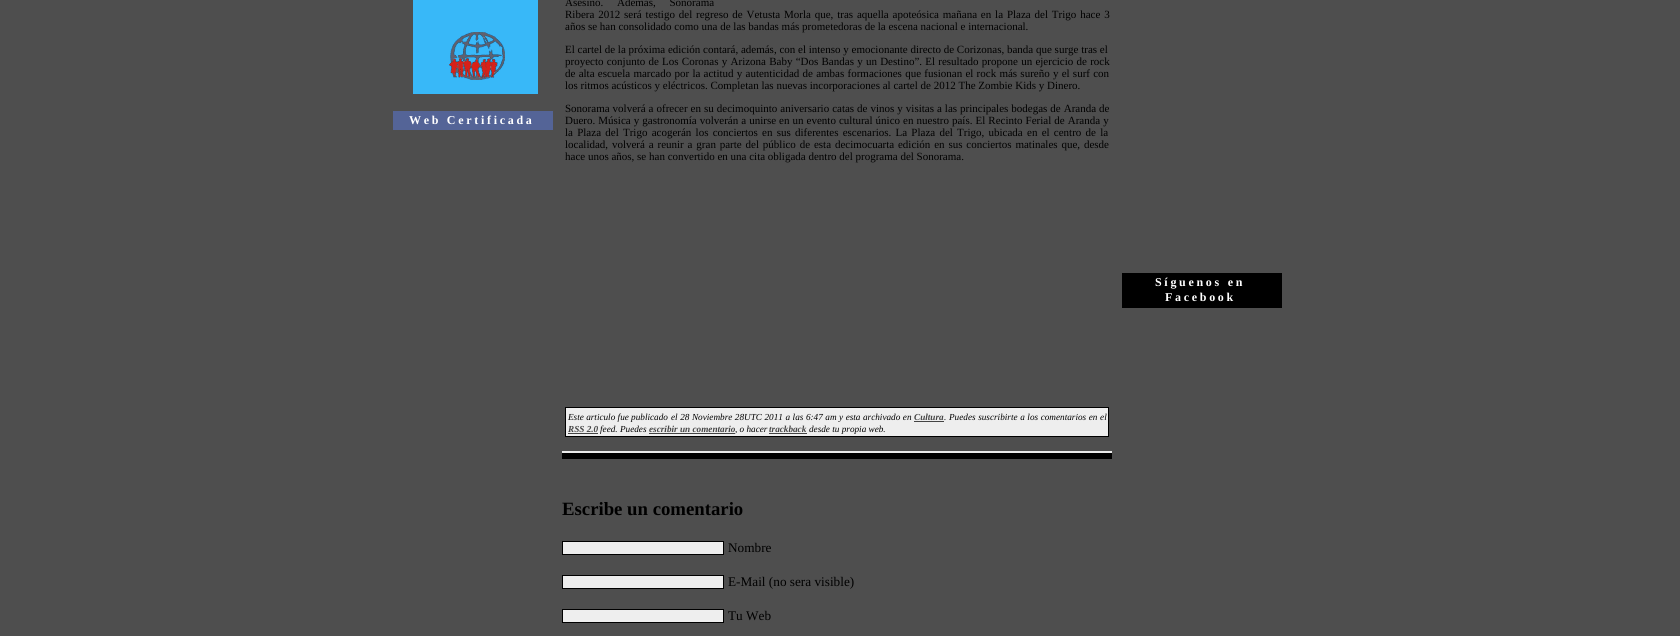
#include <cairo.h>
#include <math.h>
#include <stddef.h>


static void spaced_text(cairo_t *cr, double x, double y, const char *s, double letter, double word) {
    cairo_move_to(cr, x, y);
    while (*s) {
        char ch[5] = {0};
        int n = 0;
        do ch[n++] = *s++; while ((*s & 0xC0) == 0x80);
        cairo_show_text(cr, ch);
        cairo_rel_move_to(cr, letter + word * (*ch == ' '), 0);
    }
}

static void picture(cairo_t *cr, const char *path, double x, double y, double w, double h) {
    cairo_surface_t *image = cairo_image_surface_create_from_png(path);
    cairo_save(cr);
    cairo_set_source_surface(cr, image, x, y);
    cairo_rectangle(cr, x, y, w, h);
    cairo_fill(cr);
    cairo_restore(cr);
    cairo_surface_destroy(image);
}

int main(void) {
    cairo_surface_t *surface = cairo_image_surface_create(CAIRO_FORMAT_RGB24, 1680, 636);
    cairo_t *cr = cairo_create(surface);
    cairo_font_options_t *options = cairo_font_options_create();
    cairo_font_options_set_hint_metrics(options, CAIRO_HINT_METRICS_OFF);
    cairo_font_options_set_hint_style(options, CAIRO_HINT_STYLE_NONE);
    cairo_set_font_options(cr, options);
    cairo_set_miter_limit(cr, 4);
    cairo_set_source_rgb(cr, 0.306, 0.306, 0.306);
    cairo_paint(cr);
    picture(cr, "img1.png", 413, 0, 125, 94);
    cairo_set_source_rgb(cr, 0.329, 0.392, 0.592);
    cairo_rectangle(cr, 393, 111, 160, 19);
    cairo_fill(cr);
    cairo_select_font_face(cr, "Liberation Serif", CAIRO_FONT_SLANT_NORMAL, CAIRO_FONT_WEIGHT_BOLD);
    cairo_set_font_size(cr, 12);
    cairo_set_source_rgb(cr, 1, 1, 1);
    spaced_text(cr, 409, 124, "Web Certificada", 2.7, 0);
    cairo_select_font_face(cr, "Liberation Serif", CAIRO_FONT_SLANT_NORMAL, CAIRO_FONT_WEIGHT_NORMAL);
    cairo_set_font_size(cr, 11);
    cairo_set_source_rgb(cr, 0, 0, 0);
    spaced_text(cr, 565, 6, "Asesino. Además, Sonorama", 0, 11);
    spaced_text(cr, 565, 18, "Ribera 2012 será testigo del regreso de Vetusta Morla que, tras aquella apoteósica mañana en la Plaza del Trigo hace 3", 0, 1.1);
    cairo_move_to(cr, 565, 30);
    cairo_show_text(cr, "años se han consolidado como una de las bandas más prometedoras de la escena nacional e internacional.");
    cairo_move_to(cr, 565, 53);
    cairo_show_text(cr, "El cartel de la próxima edición contará, además, con el intenso y emocionante directo de Corizonas, banda que surge tras el");
    spaced_text(cr, 565, 65, "proyecto conjunto de Los Coronas y Arizona Baby “Dos Bandas y un Destino”. El resultado propone un ejercicio de rock", 0, 0.5);
    spaced_text(cr, 565, 77, "de alta escuela marcado por la actitud y autenticidad de ambas formaciones que fusionan el rock más sureño y el surf con", 0, 0.5);
    cairo_move_to(cr, 565, 89);
    cairo_show_text(cr, "los ritmos acústicos y eléctricos. Completan las nuevas incorporaciones al cartel de 2012 The Zombie Kids y Dinero.");
    spaced_text(cr, 565, 112, "Sonorama volverá a ofrecer en su decimoquinto aniversario catas de vinos y visitas a las principales bodegas de Aranda de", 0, 0.25);
    spaced_text(cr, 565, 124, "Duero. Música y gastronomía volverán a unirse en un evento cultural único en nuestro país. El Recinto Ferial de Aranda y", 0, 0.3);
    spaced_text(cr, 565, 136, "la Plaza del Trigo acogerán los conciertos en sus diferentes escenarios. La Plaza del Trigo, ubicada en el centro de la", 0, 1.5);
    spaced_text(cr, 565, 148, "localidad, volverá a reunir a gran parte del público de esta decimocuarta edición en sus conciertos matinales que, desde", 0, 1.1);
    cairo_move_to(cr, 565, 160);
    cairo_show_text(cr, "hace unos años, se han convertido en una cita obligada dentro del programa del Sonorama.");
    cairo_set_source_rgb(cr, 0.933, 0.933, 0.933);
    cairo_rectangle(cr, 565.5, 407.5, 543, 29);
    cairo_fill_preserve(cr);
    cairo_set_source_rgb(cr, 0, 0, 0);
    cairo_set_line_width(cr, 1);
    cairo_stroke(cr);
    cairo_select_font_face(cr, "Liberation Serif", CAIRO_FONT_SLANT_ITALIC, CAIRO_FONT_WEIGHT_NORMAL);
    cairo_set_font_size(cr, 9.2);
    cairo_move_to(cr, 568, 420);
    cairo_show_text(cr, "Este articulo fue publicado");
    spaced_text(cr, 671, 420, "el 28 Noviembre 28UTC 2011 a las 6:47 am", 0, 0.25);
    spaced_text(cr, 839, 420, "y esta archivado en", 0, 0.25);
    cairo_select_font_face(cr, "Liberation Serif", CAIRO_FONT_SLANT_ITALIC, CAIRO_FONT_WEIGHT_BOLD);
    cairo_set_source_rgb(cr, 0.267, 0.267, 0.267);
    cairo_move_to(cr, 914, 420);
    cairo_show_text(cr, "Cultura");
    cairo_select_font_face(cr, "Liberation Serif", CAIRO_FONT_SLANT_ITALIC, CAIRO_FONT_WEIGHT_NORMAL);
    cairo_set_source_rgb(cr, 0, 0, 0);
    cairo_move_to(cr, 944, 420);
    cairo_show_text(cr, ".");
    cairo_set_source_rgb(cr, 0.267, 0.267, 0.267);
    cairo_rectangle(cr, 914, 421, 30, 1);
    cairo_fill(cr);
    cairo_set_source_rgb(cr, 0, 0, 0);
    spaced_text(cr, 949, 420, "Puedes suscribirte a los comentarios en el", 0, 0.3);
    cairo_select_font_face(cr, "Liberation Serif", CAIRO_FONT_SLANT_ITALIC, CAIRO_FONT_WEIGHT_BOLD);
    cairo_set_source_rgb(cr, 0.267, 0.267, 0.267);
    cairo_move_to(cr, 568, 432);
    cairo_show_text(cr, "RSS 2.0");
    cairo_rectangle(cr, 568, 433, 30, 1);
    cairo_fill(cr);
    cairo_select_font_face(cr, "Liberation Serif", CAIRO_FONT_SLANT_ITALIC, CAIRO_FONT_WEIGHT_NORMAL);
    cairo_set_source_rgb(cr, 0, 0, 0);
    cairo_move_to(cr, 600, 432);
    cairo_show_text(cr, "feed. Puedes");
    cairo_select_font_face(cr, "Liberation Serif", CAIRO_FONT_SLANT_ITALIC, CAIRO_FONT_WEIGHT_BOLD);
    cairo_set_source_rgb(cr, 0.267, 0.267, 0.267);
    cairo_move_to(cr, 649, 432);
    cairo_show_text(cr, "escribir un comentario");
    cairo_select_font_face(cr, "Liberation Serif", CAIRO_FONT_SLANT_ITALIC, CAIRO_FONT_WEIGHT_NORMAL);
    cairo_set_source_rgb(cr, 0, 0, 0);
    cairo_move_to(cr, 735, 432);
    cairo_show_text(cr, ", o hacer");
    cairo_set_source_rgb(cr, 0.267, 0.267, 0.267);
    cairo_rectangle(cr, 649, 433, 86, 1);
    cairo_fill(cr);
    cairo_rectangle(cr, 769, 433, 38, 1);
    cairo_fill(cr);
    cairo_select_font_face(cr, "Liberation Serif", CAIRO_FONT_SLANT_ITALIC, CAIRO_FONT_WEIGHT_BOLD);
    cairo_move_to(cr, 769, 432);
    cairo_show_text(cr, "trackback");
    cairo_select_font_face(cr, "Liberation Serif", CAIRO_FONT_SLANT_ITALIC, CAIRO_FONT_WEIGHT_NORMAL);
    cairo_set_source_rgb(cr, 0, 0, 0);
    cairo_move_to(cr, 809, 432);
    cairo_show_text(cr, "desde tu propia web.");
    cairo_rectangle(cr, 562, 453, 550, 6);
    cairo_fill(cr);
    cairo_set_source_rgb(cr, 0.918, 0.918, 0.918);
    cairo_rectangle(cr, 562, 451, 550, 2);
    cairo_fill(cr);
    cairo_select_font_face(cr, "Liberation Serif", CAIRO_FONT_SLANT_NORMAL, CAIRO_FONT_WEIGHT_BOLD);
    cairo_set_font_size(cr, 18.75);
    cairo_set_source_rgb(cr, 0, 0, 0);
    cairo_move_to(cr, 562, 515);
    cairo_show_text(cr, "Escribe un comentario");
    cairo_set_source_rgb(cr, 0.933, 0.933, 0.933);
    cairo_rectangle(cr, 562.5, 541.5, 161, 13);
    cairo_fill_preserve(cr);
    cairo_set_source_rgb(cr, 0, 0, 0);
    cairo_stroke(cr);
    cairo_select_font_face(cr, "Liberation Serif", CAIRO_FONT_SLANT_NORMAL, CAIRO_FONT_WEIGHT_NORMAL);
    cairo_set_font_size(cr, 13.25);
    cairo_move_to(cr, 728, 552);
    cairo_show_text(cr, "Nombre");
    cairo_set_source_rgb(cr, 0.933, 0.933, 0.933);
    cairo_rectangle(cr, 562.5, 575.5, 161, 13);
    cairo_fill_preserve(cr);
    cairo_set_source_rgb(cr, 0, 0, 0);
    cairo_stroke(cr);
    cairo_move_to(cr, 728, 586);
    cairo_show_text(cr, "E-Mail (no sera visible)");
    cairo_set_source_rgb(cr, 0.933, 0.933, 0.933);
    cairo_rectangle(cr, 562.5, 609.5, 161, 13);
    cairo_fill_preserve(cr);
    cairo_set_source_rgb(cr, 0, 0, 0);
    cairo_stroke(cr);
    cairo_move_to(cr, 728, 620);
    cairo_show_text(cr, "Tu Web");
    cairo_rectangle(cr, 1122, 273, 160, 35);
    cairo_fill(cr);
    cairo_select_font_face(cr, "Liberation Serif", CAIRO_FONT_SLANT_NORMAL, CAIRO_FONT_WEIGHT_BOLD);
    cairo_set_font_size(cr, 12);
    cairo_set_source_rgb(cr, 1, 1, 1);
    spaced_text(cr, 1155, 286, "Síguenos en", 2.7, 0);
    spaced_text(cr, 1165, 301, "Facebook", 2.7, 0);
    cairo_surface_write_to_png(surface, "page.png");
    cairo_font_options_destroy(options);
    cairo_destroy(cr);
    cairo_surface_destroy(surface);
    return 0;
}
